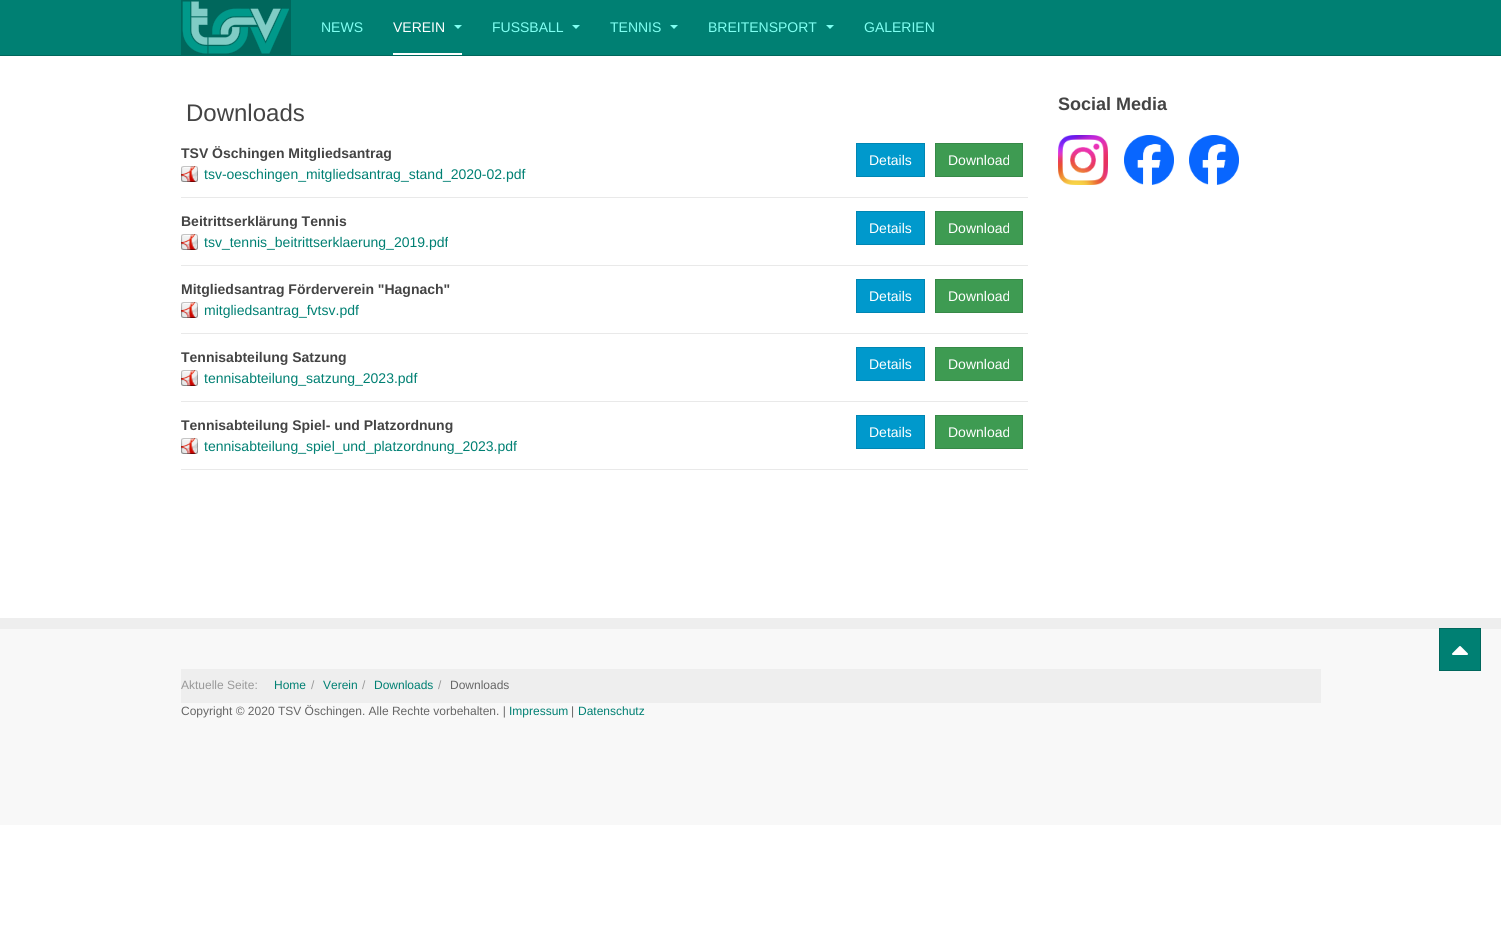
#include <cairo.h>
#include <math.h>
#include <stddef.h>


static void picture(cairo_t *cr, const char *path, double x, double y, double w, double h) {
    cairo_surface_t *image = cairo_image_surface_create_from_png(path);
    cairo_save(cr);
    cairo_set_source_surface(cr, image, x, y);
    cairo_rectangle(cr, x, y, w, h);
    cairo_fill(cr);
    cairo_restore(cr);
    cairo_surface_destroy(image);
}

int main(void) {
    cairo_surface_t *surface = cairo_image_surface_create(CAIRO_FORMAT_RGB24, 1501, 945);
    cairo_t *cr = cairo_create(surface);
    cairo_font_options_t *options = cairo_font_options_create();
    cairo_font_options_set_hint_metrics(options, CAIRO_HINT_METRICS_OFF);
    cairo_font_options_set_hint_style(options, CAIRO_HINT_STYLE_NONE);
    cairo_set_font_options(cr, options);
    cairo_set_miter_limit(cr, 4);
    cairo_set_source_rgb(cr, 1, 1, 1);
    cairo_paint(cr);
    cairo_set_source_rgb(cr, 0, 0.502, 0.451);
    cairo_rectangle(cr, 0, 0, 1501, 55);
    cairo_fill(cr);
    cairo_set_source_rgb(cr, 0, 0.404, 0.361);
    cairo_rectangle(cr, 0, 55, 1501, 1);
    cairo_fill(cr);
    cairo_rectangle(cr, 181, 0, 110, 55);
    cairo_fill(cr);
    picture(cr, "img1.png", 182, 1, 107, 53);
    cairo_select_font_face(cr, "Liberation Sans", CAIRO_FONT_SLANT_NORMAL, CAIRO_FONT_WEIGHT_NORMAL);
    cairo_set_font_size(cr, 14);
    cairo_set_source_rgb(cr, 0.502, 1, 0.949);
    cairo_move_to(cr, 321, 32);
    cairo_show_text(cr, "NEWS");
    cairo_set_source_rgb(cr, 1, 1, 1);
    cairo_rectangle(cr, 393, 53, 69, 2);
    cairo_fill(cr);
    cairo_move_to(cr, 393, 32);
    cairo_show_text(cr, "VEREIN");
    cairo_set_source_rgb(cr, 0.502, 1, 0.949);
    cairo_new_path(cr);
    cairo_move_to(cr, 454, 25);
    cairo_line_to(cr, 462, 25);
    cairo_line_to(cr, 458, 29);
    cairo_close_path(cr);
    cairo_fill(cr);
    cairo_move_to(cr, 492, 32);
    cairo_show_text(cr, "FUSSBALL");
    cairo_new_path(cr);
    cairo_move_to(cr, 572, 25);
    cairo_line_to(cr, 580, 25);
    cairo_line_to(cr, 576, 29);
    cairo_close_path(cr);
    cairo_fill(cr);
    cairo_move_to(cr, 610, 32);
    cairo_show_text(cr, "TENNIS");
    cairo_new_path(cr);
    cairo_move_to(cr, 670, 25);
    cairo_line_to(cr, 678, 25);
    cairo_line_to(cr, 674, 29);
    cairo_close_path(cr);
    cairo_fill(cr);
    cairo_move_to(cr, 708, 32);
    cairo_show_text(cr, "BREITENSPORT");
    cairo_new_path(cr);
    cairo_move_to(cr, 826, 25);
    cairo_line_to(cr, 834, 25);
    cairo_line_to(cr, 830, 29);
    cairo_close_path(cr);
    cairo_fill(cr);
    cairo_move_to(cr, 864, 32);
    cairo_show_text(cr, "GALERIEN");
    cairo_set_font_size(cr, 24);
    cairo_set_source_rgb(cr, 0.267, 0.267, 0.267);
    cairo_move_to(cr, 186, 121);
    cairo_show_text(cr, "Downloads");
    cairo_select_font_face(cr, "Liberation Sans", CAIRO_FONT_SLANT_NORMAL, CAIRO_FONT_WEIGHT_BOLD);
    cairo_set_font_size(cr, 14);
    cairo_move_to(cr, 181, 158);
    cairo_show_text(cr, "TSV Öschingen Mitgliedsantrag");
    picture(cr, "img2.png", 181, 166, 17, 16);
    cairo_select_font_face(cr, "Liberation Sans", CAIRO_FONT_SLANT_NORMAL, CAIRO_FONT_WEIGHT_NORMAL);
    cairo_set_source_rgb(cr, 0, 0.502, 0.451);
    cairo_move_to(cr, 204, 179);
    cairo_show_text(cr, "tsv-oeschingen_mitgliedsantrag_stand_2020-02.pdf");
    cairo_set_source_rgb(cr, 0, 0.6, 0.8);
    cairo_rectangle(cr, 856.5, 143.5, 68, 33);
    cairo_fill_preserve(cr);
    cairo_set_source_rgb(cr, 0, 0.525, 0.702);
    cairo_set_line_width(cr, 1);
    cairo_stroke(cr);
    cairo_set_source_rgb(cr, 1, 1, 1);
    cairo_move_to(cr, 869, 165);
    cairo_show_text(cr, "Details");
    cairo_set_source_rgb(cr, 0.243, 0.608, 0.322);
    cairo_rectangle(cr, 935.5, 143.5, 87, 33);
    cairo_fill_preserve(cr);
    cairo_set_source_rgb(cr, 0.216, 0.537, 0.282);
    cairo_stroke(cr);
    cairo_set_source_rgb(cr, 1, 1, 1);
    cairo_move_to(cr, 948, 165);
    cairo_show_text(cr, "Download");
    cairo_set_source_rgb(cr, 0.914, 0.914, 0.914);
    cairo_rectangle(cr, 181, 197, 847, 1);
    cairo_fill(cr);
    cairo_select_font_face(cr, "Liberation Sans", CAIRO_FONT_SLANT_NORMAL, CAIRO_FONT_WEIGHT_BOLD);
    cairo_set_source_rgb(cr, 0.267, 0.267, 0.267);
    cairo_move_to(cr, 181, 226);
    cairo_show_text(cr, "Beitrittserklärung Tennis");
    picture(cr, "img2.png", 181, 234, 17, 16);
    cairo_select_font_face(cr, "Liberation Sans", CAIRO_FONT_SLANT_NORMAL, CAIRO_FONT_WEIGHT_NORMAL);
    cairo_set_source_rgb(cr, 0, 0.502, 0.451);
    cairo_move_to(cr, 204, 247);
    cairo_show_text(cr, "tsv_tennis_beitrittserklaerung_2019.pdf");
    cairo_set_source_rgb(cr, 0, 0.6, 0.8);
    cairo_rectangle(cr, 856.5, 211.5, 68, 33);
    cairo_fill_preserve(cr);
    cairo_set_source_rgb(cr, 0, 0.525, 0.702);
    cairo_stroke(cr);
    cairo_set_source_rgb(cr, 1, 1, 1);
    cairo_move_to(cr, 869, 233);
    cairo_show_text(cr, "Details");
    cairo_set_source_rgb(cr, 0.243, 0.608, 0.322);
    cairo_rectangle(cr, 935.5, 211.5, 87, 33);
    cairo_fill_preserve(cr);
    cairo_set_source_rgb(cr, 0.216, 0.537, 0.282);
    cairo_stroke(cr);
    cairo_set_source_rgb(cr, 1, 1, 1);
    cairo_move_to(cr, 948, 233);
    cairo_show_text(cr, "Download");
    cairo_set_source_rgb(cr, 0.914, 0.914, 0.914);
    cairo_rectangle(cr, 181, 265, 847, 1);
    cairo_fill(cr);
    cairo_select_font_face(cr, "Liberation Sans", CAIRO_FONT_SLANT_NORMAL, CAIRO_FONT_WEIGHT_BOLD);
    cairo_set_source_rgb(cr, 0.267, 0.267, 0.267);
    cairo_move_to(cr, 181, 294);
    cairo_show_text(cr, "Mitgliedsantrag Förderverein \"Hagnach\"");
    picture(cr, "img2.png", 181, 302, 17, 16);
    cairo_select_font_face(cr, "Liberation Sans", CAIRO_FONT_SLANT_NORMAL, CAIRO_FONT_WEIGHT_NORMAL);
    cairo_set_source_rgb(cr, 0, 0.502, 0.451);
    cairo_move_to(cr, 204, 315);
    cairo_show_text(cr, "mitgliedsantrag_fvtsv.pdf");
    cairo_set_source_rgb(cr, 0, 0.6, 0.8);
    cairo_rectangle(cr, 856.5, 279.5, 68, 33);
    cairo_fill_preserve(cr);
    cairo_set_source_rgb(cr, 0, 0.525, 0.702);
    cairo_stroke(cr);
    cairo_set_source_rgb(cr, 1, 1, 1);
    cairo_move_to(cr, 869, 301);
    cairo_show_text(cr, "Details");
    cairo_set_source_rgb(cr, 0.243, 0.608, 0.322);
    cairo_rectangle(cr, 935.5, 279.5, 87, 33);
    cairo_fill_preserve(cr);
    cairo_set_source_rgb(cr, 0.216, 0.537, 0.282);
    cairo_stroke(cr);
    cairo_set_source_rgb(cr, 1, 1, 1);
    cairo_move_to(cr, 948, 301);
    cairo_show_text(cr, "Download");
    cairo_set_source_rgb(cr, 0.914, 0.914, 0.914);
    cairo_rectangle(cr, 181, 333, 847, 1);
    cairo_fill(cr);
    cairo_select_font_face(cr, "Liberation Sans", CAIRO_FONT_SLANT_NORMAL, CAIRO_FONT_WEIGHT_BOLD);
    cairo_set_source_rgb(cr, 0.267, 0.267, 0.267);
    cairo_move_to(cr, 181, 362);
    cairo_show_text(cr, "Tennisabteilung Satzung");
    picture(cr, "img2.png", 181, 370, 17, 16);
    cairo_select_font_face(cr, "Liberation Sans", CAIRO_FONT_SLANT_NORMAL, CAIRO_FONT_WEIGHT_NORMAL);
    cairo_set_source_rgb(cr, 0, 0.502, 0.451);
    cairo_move_to(cr, 204, 383);
    cairo_show_text(cr, "tennisabteilung_satzung_2023.pdf");
    cairo_set_source_rgb(cr, 0, 0.6, 0.8);
    cairo_rectangle(cr, 856.5, 347.5, 68, 33);
    cairo_fill_preserve(cr);
    cairo_set_source_rgb(cr, 0, 0.525, 0.702);
    cairo_stroke(cr);
    cairo_set_source_rgb(cr, 1, 1, 1);
    cairo_move_to(cr, 869, 369);
    cairo_show_text(cr, "Details");
    cairo_set_source_rgb(cr, 0.243, 0.608, 0.322);
    cairo_rectangle(cr, 935.5, 347.5, 87, 33);
    cairo_fill_preserve(cr);
    cairo_set_source_rgb(cr, 0.216, 0.537, 0.282);
    cairo_stroke(cr);
    cairo_set_source_rgb(cr, 1, 1, 1);
    cairo_move_to(cr, 948, 369);
    cairo_show_text(cr, "Download");
    cairo_set_source_rgb(cr, 0.914, 0.914, 0.914);
    cairo_rectangle(cr, 181, 401, 847, 1);
    cairo_fill(cr);
    cairo_select_font_face(cr, "Liberation Sans", CAIRO_FONT_SLANT_NORMAL, CAIRO_FONT_WEIGHT_BOLD);
    cairo_set_source_rgb(cr, 0.267, 0.267, 0.267);
    cairo_move_to(cr, 181, 430);
    cairo_show_text(cr, "Tennisabteilung Spiel- und Platzordnung");
    picture(cr, "img2.png", 181, 438, 17, 16);
    cairo_select_font_face(cr, "Liberation Sans", CAIRO_FONT_SLANT_NORMAL, CAIRO_FONT_WEIGHT_NORMAL);
    cairo_set_source_rgb(cr, 0, 0.502, 0.451);
    cairo_move_to(cr, 204, 451);
    cairo_show_text(cr, "tennisabteilung_spiel_und_platzordnung_2023.pdf");
    cairo_set_source_rgb(cr, 0, 0.6, 0.8);
    cairo_rectangle(cr, 856.5, 415.5, 68, 33);
    cairo_fill_preserve(cr);
    cairo_set_source_rgb(cr, 0, 0.525, 0.702);
    cairo_stroke(cr);
    cairo_set_source_rgb(cr, 1, 1, 1);
    cairo_move_to(cr, 869, 437);
    cairo_show_text(cr, "Details");
    cairo_set_source_rgb(cr, 0.243, 0.608, 0.322);
    cairo_rectangle(cr, 935.5, 415.5, 87, 33);
    cairo_fill_preserve(cr);
    cairo_set_source_rgb(cr, 0.216, 0.537, 0.282);
    cairo_stroke(cr);
    cairo_set_source_rgb(cr, 1, 1, 1);
    cairo_move_to(cr, 948, 437);
    cairo_show_text(cr, "Download");
    cairo_set_source_rgb(cr, 0.914, 0.914, 0.914);
    cairo_rectangle(cr, 181, 469, 847, 1);
    cairo_fill(cr);
    cairo_select_font_face(cr, "Liberation Sans", CAIRO_FONT_SLANT_NORMAL, CAIRO_FONT_WEIGHT_BOLD);
    cairo_set_font_size(cr, 18);
    cairo_set_source_rgb(cr, 0.267, 0.267, 0.267);
    cairo_move_to(cr, 1058, 110);
    cairo_show_text(cr, "Social Media");
    picture(cr, "img3.png", 1058, 135, 50, 50);
    picture(cr, "img4.png", 1124, 135, 50, 50);
    picture(cr, "img4.png", 1189, 135, 50, 50);
    cairo_set_source_rgb(cr, 0.933, 0.933, 0.933);
    cairo_rectangle(cr, 0, 618, 1501, 11);
    cairo_fill(cr);
    cairo_set_source_rgb(cr, 0.969, 0.969, 0.969);
    cairo_rectangle(cr, 0, 629, 1501, 196);
    cairo_fill(cr);
    cairo_set_source_rgb(cr, 0, 0.502, 0.451);
    cairo_rectangle(cr, 1439.5, 628.5, 41, 42);
    cairo_fill_preserve(cr);
    cairo_set_source_rgb(cr, 0, 0.404, 0.361);
    cairo_stroke(cr);
    picture(cr, "img5.png", 1452, 646, 16, 9);
    cairo_set_source_rgb(cr, 0.933, 0.933, 0.933);
    cairo_rectangle(cr, 181, 669, 1140, 34);
    cairo_fill(cr);
    cairo_select_font_face(cr, "Liberation Sans", CAIRO_FONT_SLANT_NORMAL, CAIRO_FONT_WEIGHT_NORMAL);
    cairo_set_font_size(cr, 12);
    cairo_set_source_rgb(cr, 0.6, 0.6, 0.6);
    cairo_move_to(cr, 181, 689);
    cairo_show_text(cr, "Aktuelle Seite:");
    cairo_set_source_rgb(cr, 0, 0.502, 0.451);
    cairo_move_to(cr, 274, 689);
    cairo_show_text(cr, "Home");
    cairo_set_source_rgb(cr, 0.6, 0.6, 0.6);
    cairo_move_to(cr, 311, 689);
    cairo_show_text(cr, "/");
    cairo_set_source_rgb(cr, 0, 0.502, 0.451);
    cairo_move_to(cr, 323, 689);
    cairo_show_text(cr, "Verein");
    cairo_set_source_rgb(cr, 0.6, 0.6, 0.6);
    cairo_move_to(cr, 362, 689);
    cairo_show_text(cr, "/");
    cairo_set_source_rgb(cr, 0, 0.502, 0.451);
    cairo_move_to(cr, 374, 689);
    cairo_show_text(cr, "Downloads");
    cairo_set_source_rgb(cr, 0.6, 0.6, 0.6);
    cairo_move_to(cr, 438, 689);
    cairo_show_text(cr, "/");
    cairo_set_source_rgb(cr, 0.4, 0.4, 0.4);
    cairo_move_to(cr, 450, 689);
    cairo_show_text(cr, "Downloads");
    cairo_move_to(cr, 181, 715);
    cairo_show_text(cr, "Copyright © 2020 TSV Öschingen. Alle Rechte vorbehalten. |");
    cairo_set_source_rgb(cr, 0, 0.502, 0.451);
    cairo_move_to(cr, 509, 715);
    cairo_show_text(cr, "Impressum");
    cairo_set_source_rgb(cr, 0.4, 0.4, 0.4);
    cairo_move_to(cr, 571, 715);
    cairo_show_text(cr, "|");
    cairo_set_source_rgb(cr, 0, 0.502, 0.451);
    cairo_move_to(cr, 578, 715);
    cairo_show_text(cr, "Datenschutz");
    cairo_surface_write_to_png(surface, "page.png");
    cairo_font_options_destroy(options);
    cairo_destroy(cr);
    cairo_surface_destroy(surface);
    return 0;
}
